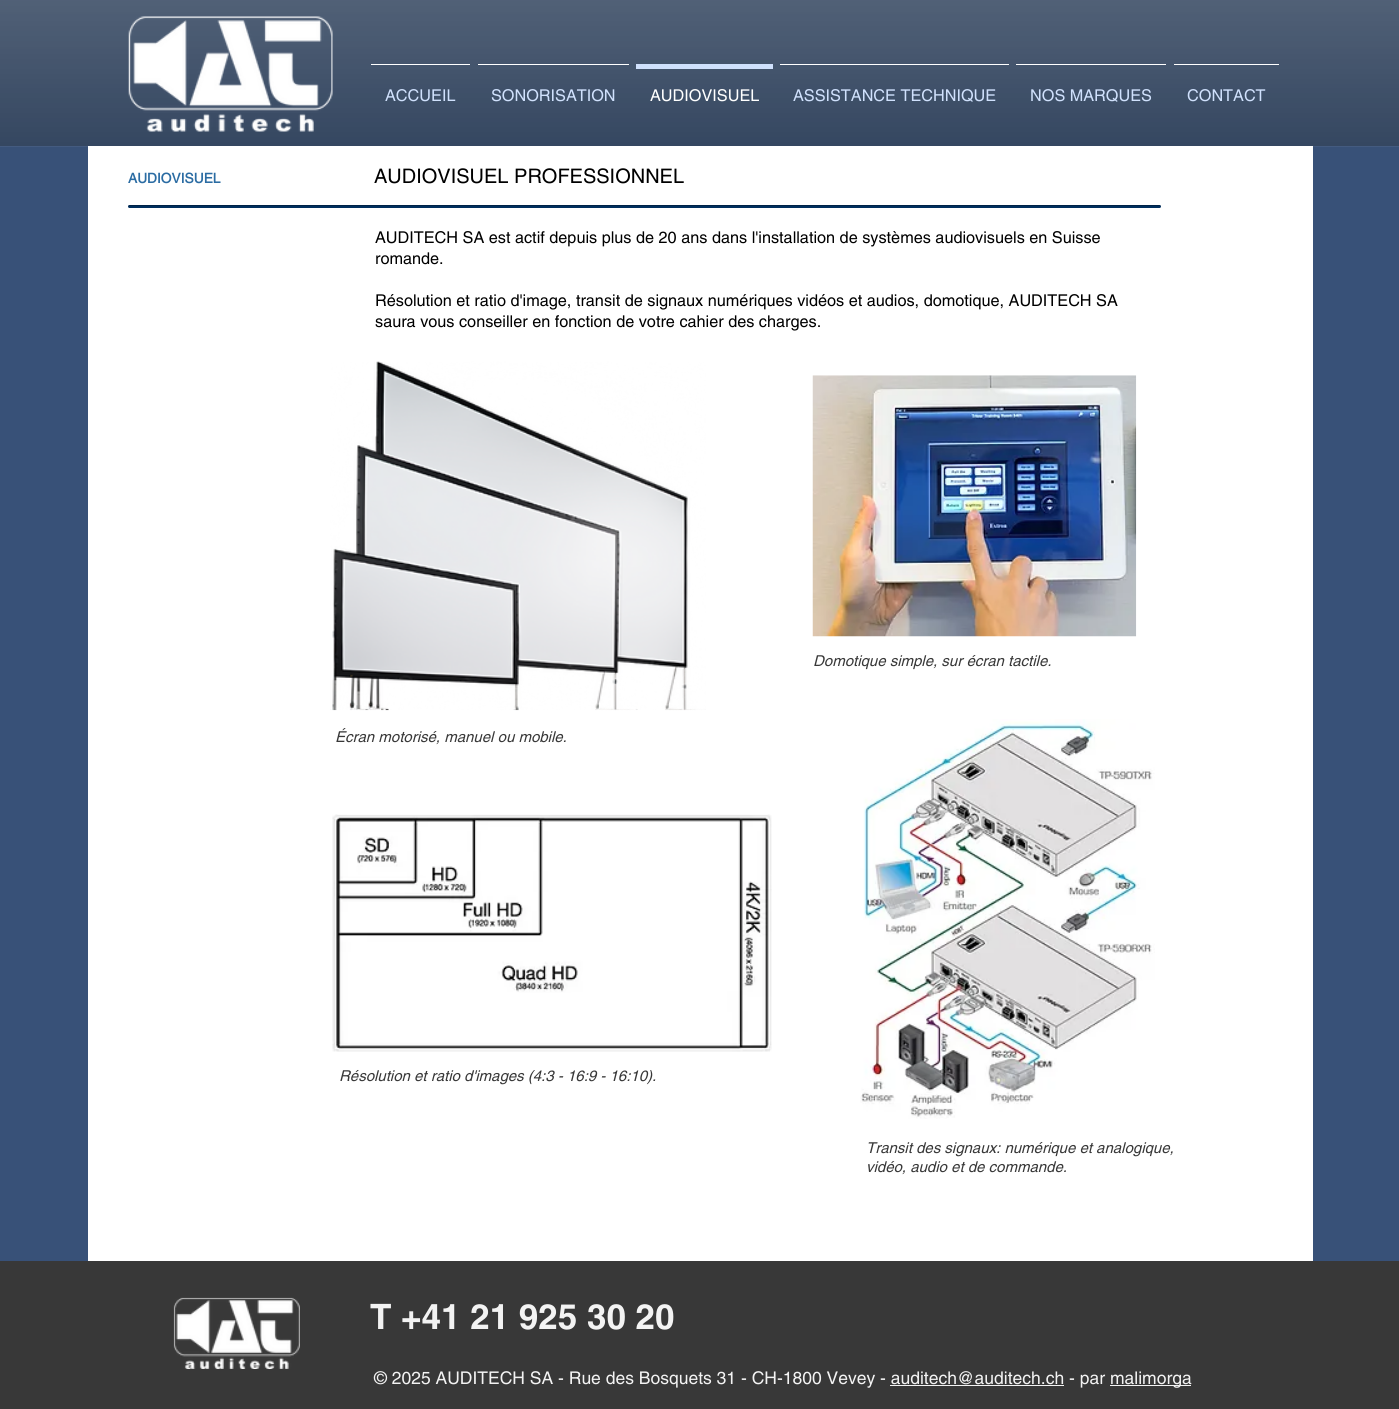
#include <cairo.h>
#include <math.h>
#include <stddef.h>


static void round_rect(cairo_t *cr, double x, double y, double w, double h, double r) {
    cairo_new_sub_path(cr);
    cairo_arc(cr, x + w - r, y + h - r, r, 0, M_PI / 2);
    cairo_arc(cr, x + r, y + h - r, r, M_PI / 2, M_PI);
    cairo_arc(cr, x + r, y + r, r, M_PI, 1.5 * M_PI);
    cairo_arc(cr, x + w - r, y + r, r, 1.5 * M_PI, 2 * M_PI);
    cairo_close_path(cr);
}

static void picture(cairo_t *cr, const char *path, double x, double y, double w, double h) {
    cairo_surface_t *image = cairo_image_surface_create_from_png(path);
    cairo_save(cr);
    cairo_set_source_surface(cr, image, x, y);
    cairo_rectangle(cr, x, y, w, h);
    cairo_fill(cr);
    cairo_restore(cr);
    cairo_surface_destroy(image);
}

int main(void) {
    cairo_surface_t *surface = cairo_image_surface_create(CAIRO_FORMAT_RGB24, 1399, 1409);
    cairo_t *cr = cairo_create(surface);
    cairo_font_options_t *options = cairo_font_options_create();
    cairo_font_options_set_hint_metrics(options, CAIRO_HINT_METRICS_OFF);
    cairo_font_options_set_hint_style(options, CAIRO_HINT_STYLE_NONE);
    cairo_set_font_options(cr, options);
    cairo_set_miter_limit(cr, 4);
    cairo_set_source_rgb(cr, 0.22, 0.318, 0.471);
    cairo_paint(cr);
    cairo_set_source_rgb(cr, 0.082, 0.161, 0.278);
    cairo_rectangle(cr, 0, 0, 1399, 146);
    cairo_fill(cr);
    cairo_set_source_rgb(cr, 1, 1, 1);
    cairo_rectangle(cr, 88, 146, 1225, 1115);
    cairo_fill(cr);
    picture(cr, "img1.png", 0, 0, 1399, 147);
    picture(cr, "img2.png", 128, 16, 205, 116);
    cairo_rectangle(cr, 371, 64, 99, 1);
    cairo_fill(cr);
    cairo_select_font_face(cr, "helvetica", CAIRO_FONT_SLANT_NORMAL, CAIRO_FONT_WEIGHT_NORMAL);
    cairo_set_font_size(cr, 16.25);
    cairo_set_source_rgb(cr, 0.816, 0.882, 0.992);
    cairo_move_to(cr, 385, 101);
    cairo_show_text(cr, "ACCUEIL");
    cairo_set_source_rgb(cr, 1, 1, 1);
    cairo_rectangle(cr, 478, 64, 151, 1);
    cairo_fill(cr);
    cairo_set_source_rgb(cr, 0.816, 0.882, 0.992);
    cairo_move_to(cr, 491, 101);
    cairo_show_text(cr, "SONORISATION");
    cairo_rectangle(cr, 636, 64, 137, 5);
    cairo_fill(cr);
    cairo_set_source_rgb(cr, 1, 1, 1);
    cairo_move_to(cr, 650, 101);
    cairo_show_text(cr, "AUDIOVISUEL");
    cairo_rectangle(cr, 780, 64, 229, 1);
    cairo_fill(cr);
    cairo_set_source_rgb(cr, 0.816, 0.882, 0.992);
    cairo_move_to(cr, 793, 101);
    cairo_show_text(cr, "ASSISTANCE TECHNIQUE");
    cairo_set_source_rgb(cr, 1, 1, 1);
    cairo_rectangle(cr, 1016, 64, 150, 1);
    cairo_fill(cr);
    cairo_set_source_rgb(cr, 0.816, 0.882, 0.992);
    cairo_move_to(cr, 1030, 101);
    cairo_show_text(cr, "NOS MARQUES");
    cairo_set_source_rgb(cr, 1, 1, 1);
    cairo_rectangle(cr, 1174, 64, 105, 1);
    cairo_fill(cr);
    cairo_set_source_rgb(cr, 0.816, 0.882, 0.992);
    cairo_move_to(cr, 1187, 101);
    cairo_show_text(cr, "CONTACT");
    cairo_select_font_face(cr, "helvetica", CAIRO_FONT_SLANT_NORMAL, CAIRO_FONT_WEIGHT_BOLD);
    cairo_set_font_size(cr, 13.75);
    cairo_set_source_rgb(cr, 0.169, 0.424, 0.639);
    cairo_move_to(cr, 128, 183);
    cairo_show_text(cr, "AUDIOVISUEL");
    cairo_select_font_face(cr, "helvetica", CAIRO_FONT_SLANT_NORMAL, CAIRO_FONT_WEIGHT_NORMAL);
    cairo_set_font_size(cr, 20);
    cairo_set_source_rgb(cr, 0, 0, 0);
    cairo_move_to(cr, 374, 183);
    cairo_show_text(cr, "AUDIOVISUEL PROFESSIONNEL");
    cairo_set_source_rgb(cr, 0, 0.18, 0.365);
    round_rect(cr, 128, 205, 1033, 3, 1.5);
    cairo_fill(cr);
    cairo_set_source_rgba(cr, 0, 0, 0, 0.25);
    cairo_new_path(cr);
    cairo_move_to(cr, 129, 206);
    cairo_line_to(cr, 1161, 206);
    cairo_curve_to(cr, 1161, 206, 1160, 205, 1160, 205);
    cairo_line_to(cr, 130, 205);
    cairo_curve_to(cr, 129, 205, 128, 206, 128, 206);
    cairo_close_path(cr);
    cairo_fill(cr);
    cairo_set_font_size(cr, 16.25);
    cairo_set_source_rgb(cr, 0, 0, 0);
    cairo_move_to(cr, 375, 243);
    cairo_show_text(cr, "AUDITECH SA est actif depuis plus de 20 ans dans l'installation de systèmes audiovisuels en Suisse");
    cairo_move_to(cr, 375, 264);
    cairo_show_text(cr, "romande.");
    cairo_move_to(cr, 375, 306);
    cairo_show_text(cr, "Résolution et ratio d'image, transit de signaux numériques vidéos et audios, domotique, AUDITECH SA");
    cairo_move_to(cr, 375, 327);
    cairo_show_text(cr, "saura vous conseiller en fonction de votre cahier des charges.");
    picture(cr, "img3.png", 812, 375, 325, 262);
    cairo_select_font_face(cr, "helvetica", CAIRO_FONT_SLANT_ITALIC, CAIRO_FONT_WEIGHT_NORMAL);
    cairo_set_font_size(cr, 15);
    cairo_set_source_rgb(cr, 0.22, 0.22, 0.22);
    cairo_move_to(cr, 813, 666);
    cairo_show_text(cr, "Domotique simple, sur écran tactile.");
    picture(cr, "img4.png", 330, 361, 376, 350);
    cairo_move_to(cr, 335, 742);
    cairo_show_text(cr, "Écran motorisé, manuel ou mobile.");
    picture(cr, "img5.png", 860, 719, 295, 400);
    picture(cr, "img6.png", 332, 814, 440, 238);
    cairo_move_to(cr, 339, 1081);
    cairo_show_text(cr, "Résolution et ratio d'images (4:3 - 16:9 - 16:10).");
    cairo_move_to(cr, 866, 1153);
    cairo_show_text(cr, "Transit des signaux: numérique et analogique,");
    cairo_move_to(cr, 866, 1172);
    cairo_show_text(cr, "vidéo, audio et de commande.");
    cairo_rectangle(cr, 0, 1261, 1399, 148);
    cairo_fill(cr);
    picture(cr, "img7.png", 173, 1297, 127, 72);
    cairo_select_font_face(cr, "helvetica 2", CAIRO_FONT_SLANT_NORMAL, CAIRO_FONT_WEIGHT_BOLD);
    cairo_set_font_size(cr, 35);
    cairo_set_source_rgb(cr, 0.953, 0.953, 0.953);
    cairo_move_to(cr, 370, 1329);
    cairo_show_text(cr, "T +41 21 925 30 20");
    cairo_select_font_face(cr, "helvetica", CAIRO_FONT_SLANT_NORMAL, CAIRO_FONT_WEIGHT_NORMAL);
    cairo_set_font_size(cr, 17.5);
    cairo_move_to(cr, 374, 1384);
    cairo_show_text(cr, "© 2025 AUDITECH SA - Rue des Bosquets 31 - CH-1800 Vevey - auditech@auditech.ch - par");
    cairo_rectangle(cr, 890, 1385, 174, 1);
    cairo_fill(cr);
    cairo_rectangle(cr, 1110, 1385, 81, 1);
    cairo_fill(cr);
    cairo_move_to(cr, 1110, 1384);
    cairo_show_text(cr, "malimorga");
    cairo_surface_write_to_png(surface, "page.png");
    cairo_font_options_destroy(options);
    cairo_destroy(cr);
    cairo_surface_destroy(surface);
    return 0;
}
